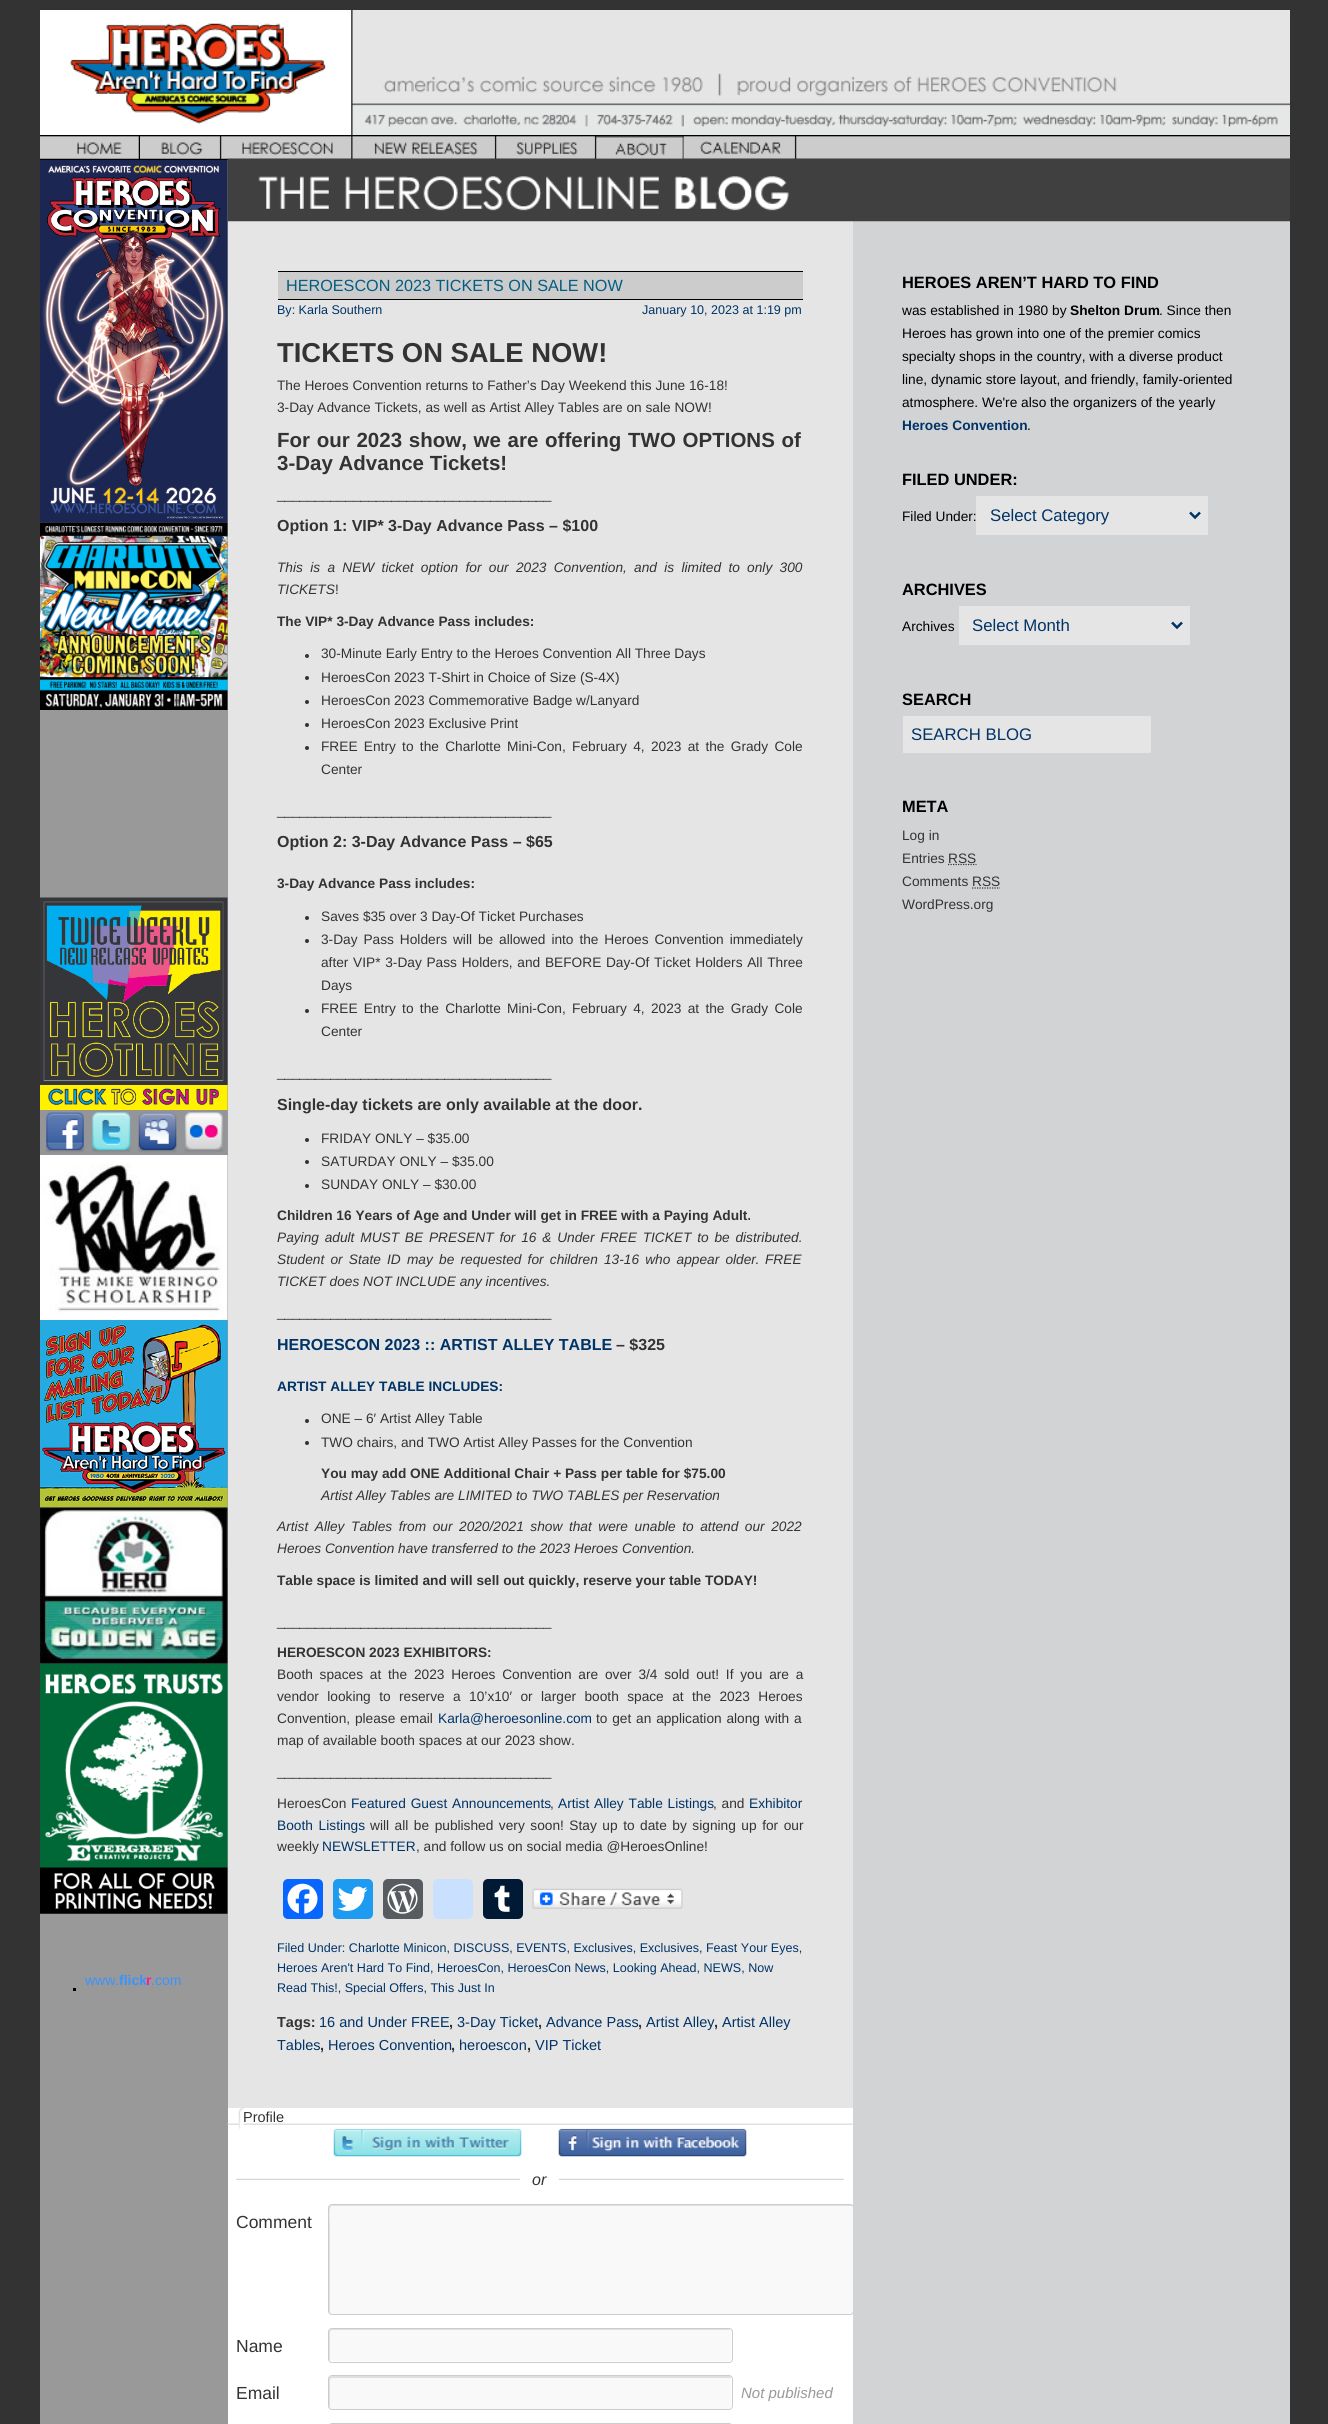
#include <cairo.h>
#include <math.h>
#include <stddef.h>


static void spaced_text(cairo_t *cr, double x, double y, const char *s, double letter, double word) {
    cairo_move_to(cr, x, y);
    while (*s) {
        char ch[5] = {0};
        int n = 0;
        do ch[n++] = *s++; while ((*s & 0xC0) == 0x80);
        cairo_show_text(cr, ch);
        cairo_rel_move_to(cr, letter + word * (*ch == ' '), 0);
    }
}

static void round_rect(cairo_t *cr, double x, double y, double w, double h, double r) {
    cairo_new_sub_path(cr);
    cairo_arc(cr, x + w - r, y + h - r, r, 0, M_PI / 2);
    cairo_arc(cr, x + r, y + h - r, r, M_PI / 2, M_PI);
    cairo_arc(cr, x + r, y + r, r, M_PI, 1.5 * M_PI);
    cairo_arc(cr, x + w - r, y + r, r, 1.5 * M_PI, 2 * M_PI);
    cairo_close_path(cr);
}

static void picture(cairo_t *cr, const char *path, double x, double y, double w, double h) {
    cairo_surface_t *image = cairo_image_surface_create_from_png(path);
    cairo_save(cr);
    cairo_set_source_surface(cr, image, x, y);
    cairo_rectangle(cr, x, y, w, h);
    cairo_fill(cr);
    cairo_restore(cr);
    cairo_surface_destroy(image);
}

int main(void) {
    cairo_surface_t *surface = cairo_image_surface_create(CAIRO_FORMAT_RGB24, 1328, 2424);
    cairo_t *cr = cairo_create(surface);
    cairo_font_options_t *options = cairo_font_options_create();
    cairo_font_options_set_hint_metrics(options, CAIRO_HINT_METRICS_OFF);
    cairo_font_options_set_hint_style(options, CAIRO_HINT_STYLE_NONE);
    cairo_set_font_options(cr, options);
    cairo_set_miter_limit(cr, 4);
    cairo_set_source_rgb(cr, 0.2, 0.2, 0.2);
    cairo_paint(cr);
    picture(cr, "img1.png", 40, 10, 313, 125);
    picture(cr, "img2.png", 352, 10, 938, 94);
    picture(cr, "img3.png", 352, 103, 938, 32);
    cairo_set_source_rgb(cr, 0.6, 0.6, 0.6);
    cairo_rectangle(cr, 40, 160, 188, 2264);
    cairo_fill(cr);
    picture(cr, "img12.png", 40, 158, 188, 365);
    picture(cr, "img4.png", 40, 135, 100, 25);
    picture(cr, "img5.png", 140, 135, 82, 25);
    picture(cr, "img6.png", 221, 135, 132, 25);
    picture(cr, "img7.png", 352, 135, 145, 24);
    picture(cr, "img8.png", 496, 135, 101, 24);
    picture(cr, "img9.png", 596, 135, 88, 24);
    picture(cr, "img10.png", 683, 135, 114, 24);
    picture(cr, "img11.png", 796, 135, 494, 24);
    cairo_set_source_rgb(cr, 0.82, 0.827, 0.831);
    cairo_rectangle(cr, 853, 221, 437, 2203);
    cairo_fill(cr);
    picture(cr, "img13.png", 40, 522, 188, 188);
    picture(cr, "img14.png", 40, 897, 188, 188);
    picture(cr, "img15.png", 40, 1085, 188, 25);
    picture(cr, "img16.png", 40, 1110, 187, 45);
    picture(cr, "img17.png", 40, 1155, 188, 165);
    picture(cr, "img18.png", 40, 1320, 188, 188);
    picture(cr, "img19.png", 40, 1507, 188, 157);
    picture(cr, "img20.png", 40, 1663, 188, 251);
    cairo_select_font_face(cr, "Liberation Sans", CAIRO_FONT_SLANT_NORMAL, CAIRO_FONT_WEIGHT_NORMAL);
    cairo_set_font_size(cr, 14);
    cairo_set_source_rgb(cr, 0.224, 0.576, 1);
    cairo_move_to(cr, 85, 1985);
    cairo_show_text(cr, "www.");
    cairo_select_font_face(cr, "Liberation Sans", CAIRO_FONT_SLANT_NORMAL, CAIRO_FONT_WEIGHT_BOLD);
    cairo_move_to(cr, 119, 1985);
    cairo_show_text(cr, "flick");
    cairo_set_source_rgb(cr, 1, 0.11, 0.573);
    cairo_move_to(cr, 146, 1985);
    cairo_show_text(cr, "r");
    cairo_select_font_face(cr, "Liberation Sans", CAIRO_FONT_SLANT_NORMAL, CAIRO_FONT_WEIGHT_NORMAL);
    cairo_set_source_rgb(cr, 0.224, 0.576, 1);
    cairo_move_to(cr, 151, 1985);
    cairo_show_text(cr, ".com");
    cairo_set_source_rgb(cr, 0, 0, 0);
    cairo_rectangle(cr, 73, 1988, 3, 3);
    cairo_fill(cr);
    cairo_set_source_rgb(cr, 0.898, 0.898, 0.898);
    cairo_rectangle(cr, 228, 221, 625, 1887);
    cairo_fill(cr);
    picture(cr, "img21.png", 227, 158, 1063, 64);
    cairo_set_source_rgb(cr, 0.8, 0.8, 0.8);
    cairo_rectangle(cr, 278, 272, 525, 27);
    cairo_fill(cr);
    cairo_set_source_rgb(cr, 0, 0, 0);
    cairo_rectangle(cr, 278, 271, 525, 1);
    cairo_fill(cr);
    cairo_rectangle(cr, 278, 299, 525, 1);
    cairo_fill(cr);
    cairo_set_font_size(cr, 16.2);
    cairo_set_source_rgb(cr, 0.004, 0.365, 0.51);
    cairo_move_to(cr, 286, 291);
    cairo_show_text(cr, "HEROESCON 2023 TICKETS ON SALE NOW");
    cairo_set_font_size(cr, 12.55);
    cairo_set_source_rgb(cr, 0, 0.2, 0.4);
    cairo_move_to(cr, 277, 314);
    cairo_show_text(cr, "By: Karla Southern");
    cairo_move_to(cr, 642, 314);
    cairo_show_text(cr, "January 10, 2023 at 1:19 pm");
    cairo_select_font_face(cr, "Liberation Sans", CAIRO_FONT_SLANT_NORMAL, CAIRO_FONT_WEIGHT_BOLD);
    cairo_set_font_size(cr, 27.4);
    cairo_set_source_rgb(cr, 0.2, 0.2, 0.2);
    cairo_move_to(cr, 277, 362);
    cairo_show_text(cr, "TICKETS ON SALE NOW!");
    cairo_select_font_face(cr, "Liberation Sans", CAIRO_FONT_SLANT_NORMAL, CAIRO_FONT_WEIGHT_NORMAL);
    cairo_set_font_size(cr, 13.7);
    cairo_move_to(cr, 277, 390);
    cairo_show_text(cr, "The Heroes Convention returns to Father’s Day Weekend this June 16-18!");
    cairo_move_to(cr, 277, 412);
    cairo_show_text(cr, "3-Day Advance Tickets, as well as Artist Alley Tables are on sale NOW!");
    cairo_select_font_face(cr, "Liberation Sans", CAIRO_FONT_SLANT_NORMAL, CAIRO_FONT_WEIGHT_BOLD);
    cairo_set_font_size(cr, 20.5);
    spaced_text(cr, 277, 447, "For our 2023 show, we are offering TWO OPTIONS of", 0, 1);
    cairo_move_to(cr, 277, 470);
    cairo_show_text(cr, "3-Day Advance Tickets!");
    cairo_select_font_face(cr, "Liberation Sans", CAIRO_FONT_SLANT_NORMAL, CAIRO_FONT_WEIGHT_NORMAL);
    cairo_set_font_size(cr, 13.7);
    cairo_move_to(cr, 277, 499);
    cairo_show_text(cr, "____________________________________");
    cairo_select_font_face(cr, "Liberation Sans", CAIRO_FONT_SLANT_NORMAL, CAIRO_FONT_WEIGHT_BOLD);
    cairo_set_font_size(cr, 16);
    cairo_move_to(cr, 277, 531);
    cairo_show_text(cr, "Option 1: VIP* 3-Day Advance Pass – $100");
    cairo_select_font_face(cr, "Liberation Sans", CAIRO_FONT_SLANT_ITALIC, CAIRO_FONT_WEIGHT_NORMAL);
    cairo_set_font_size(cr, 13.7);
    spaced_text(cr, 277, 572, "This is a NEW ticket option for our 2023 Convention, and is limited to only 300", 0, 3.5);
    cairo_move_to(cr, 277, 594);
    cairo_show_text(cr, "TICKETS");
    cairo_select_font_face(cr, "Liberation Sans", CAIRO_FONT_SLANT_NORMAL, CAIRO_FONT_WEIGHT_NORMAL);
    cairo_move_to(cr, 335, 594);
    cairo_show_text(cr, "!");
    cairo_select_font_face(cr, "Liberation Sans", CAIRO_FONT_SLANT_NORMAL, CAIRO_FONT_WEIGHT_BOLD);
    cairo_move_to(cr, 277, 626);
    cairo_show_text(cr, "The VIP* 3-Day Advance Pass includes:");
    cairo_new_path(cr);
    cairo_arc(cr, 307, 656, 2, 0, 2 * M_PI);
    cairo_fill(cr);
    cairo_select_font_face(cr, "Liberation Sans", CAIRO_FONT_SLANT_NORMAL, CAIRO_FONT_WEIGHT_NORMAL);
    cairo_move_to(cr, 321, 658);
    cairo_show_text(cr, "30-Minute Early Entry to the Heroes Convention All Three Days");
    cairo_new_path(cr);
    cairo_arc(cr, 307, 678, 2, 0, 2 * M_PI);
    cairo_fill(cr);
    cairo_move_to(cr, 321, 682);
    cairo_show_text(cr, "HeroesCon 2023 T-Shirt in Choice of Size (S-4X)");
    cairo_new_path(cr);
    cairo_arc(cr, 307, 702, 2, 0, 2 * M_PI);
    cairo_fill(cr);
    cairo_move_to(cr, 321, 705);
    cairo_show_text(cr, "HeroesCon 2023 Commemorative Badge w/Lanyard");
    cairo_new_path(cr);
    cairo_arc(cr, 307, 725, 2, 0, 2 * M_PI);
    cairo_fill(cr);
    cairo_move_to(cr, 321, 728);
    cairo_show_text(cr, "HeroesCon 2023 Exclusive Print");
    cairo_new_path(cr);
    cairo_arc(cr, 307, 748, 2, 0, 2 * M_PI);
    cairo_fill(cr);
    spaced_text(cr, 321, 751, "FREE Entry to the Charlotte Mini-Con, February 4, 2023 at the Grady Cole", 0, 2.5);
    cairo_move_to(cr, 321, 774);
    cairo_show_text(cr, "Center");
    cairo_move_to(cr, 277, 815);
    cairo_show_text(cr, "____________________________________");
    cairo_select_font_face(cr, "Liberation Sans", CAIRO_FONT_SLANT_NORMAL, CAIRO_FONT_WEIGHT_BOLD);
    cairo_set_font_size(cr, 16);
    cairo_move_to(cr, 277, 847);
    cairo_show_text(cr, "Option 2: 3-Day Advance Pass – $65");
    cairo_set_font_size(cr, 13.7);
    cairo_move_to(cr, 277, 888);
    cairo_show_text(cr, "3-Day Advance Pass includes:");
    cairo_new_path(cr);
    cairo_arc(cr, 307, 918, 2, 0, 2 * M_PI);
    cairo_fill(cr);
    cairo_select_font_face(cr, "Liberation Sans", CAIRO_FONT_SLANT_NORMAL, CAIRO_FONT_WEIGHT_NORMAL);
    cairo_move_to(cr, 321, 921);
    cairo_show_text(cr, "Saves $35 over 3 Day-Of Ticket Purchases");
    cairo_new_path(cr);
    cairo_arc(cr, 307, 941, 2, 0, 2 * M_PI);
    cairo_fill(cr);
    spaced_text(cr, 321, 944, "3-Day Pass Holders will be allowed into the Heroes Convention immediately", 0, 2.1);
    spaced_text(cr, 321, 967, "after VIP* 3-Day Pass Holders, and BEFORE Day-Of Ticket Holders All Three", 0, 0.9);
    cairo_move_to(cr, 321, 990);
    cairo_show_text(cr, "Days");
    cairo_new_path(cr);
    cairo_arc(cr, 307, 1011, 2, 0, 2 * M_PI);
    cairo_fill(cr);
    spaced_text(cr, 321, 1013, "FREE Entry to the Charlotte Mini-Con, February 4, 2023 at the Grady Cole", 0, 2.5);
    cairo_move_to(cr, 321, 1036);
    cairo_show_text(cr, "Center");
    cairo_move_to(cr, 277, 1077);
    cairo_show_text(cr, "____________________________________");
    cairo_select_font_face(cr, "Liberation Sans", CAIRO_FONT_SLANT_NORMAL, CAIRO_FONT_WEIGHT_BOLD);
    cairo_set_font_size(cr, 16);
    cairo_move_to(cr, 277, 1110);
    cairo_show_text(cr, "Single-day tickets are only available at the door.");
    cairo_new_path(cr);
    cairo_arc(cr, 307, 1140, 2, 0, 2 * M_PI);
    cairo_fill(cr);
    cairo_select_font_face(cr, "Liberation Sans", CAIRO_FONT_SLANT_NORMAL, CAIRO_FONT_WEIGHT_NORMAL);
    cairo_set_font_size(cr, 13.7);
    cairo_move_to(cr, 321, 1143);
    cairo_show_text(cr, "FRIDAY ONLY – $35.00");
    cairo_new_path(cr);
    cairo_arc(cr, 307, 1162, 2, 0, 2 * M_PI);
    cairo_fill(cr);
    cairo_move_to(cr, 321, 1166);
    cairo_show_text(cr, "SATURDAY ONLY – $35.00");
    cairo_new_path(cr);
    cairo_arc(cr, 307, 1186, 2, 0, 2 * M_PI);
    cairo_fill(cr);
    cairo_move_to(cr, 321, 1189);
    cairo_show_text(cr, "SUNDAY ONLY – $30.00");
    cairo_select_font_face(cr, "Liberation Sans", CAIRO_FONT_SLANT_NORMAL, CAIRO_FONT_WEIGHT_BOLD);
    cairo_move_to(cr, 277, 1220);
    cairo_show_text(cr, "Children 16 Years of Age and Under will get in FREE with a Paying Adult.");
    cairo_select_font_face(cr, "Liberation Sans", CAIRO_FONT_SLANT_ITALIC, CAIRO_FONT_WEIGHT_NORMAL);
    spaced_text(cr, 277, 1242, "Paying adult MUST BE PRESENT for 16 & Under FREE TICKET to be distributed.", 0, 2);
    spaced_text(cr, 277, 1264, "Student or State ID may be requested for children 13-16 who appear older", 0, 2.4);
    cairo_select_font_face(cr, "Liberation Sans", CAIRO_FONT_SLANT_NORMAL, CAIRO_FONT_WEIGHT_NORMAL);
    cairo_move_to(cr, 755, 1264);
    cairo_show_text(cr, ".");
    cairo_select_font_face(cr, "Liberation Sans", CAIRO_FONT_SLANT_ITALIC, CAIRO_FONT_WEIGHT_NORMAL);
    cairo_move_to(cr, 765, 1264);
    cairo_show_text(cr, "FREE");
    cairo_move_to(cr, 277, 1286);
    cairo_show_text(cr, "TICKET does NOT INCLUDE any incentives.");
    cairo_select_font_face(cr, "Liberation Sans", CAIRO_FONT_SLANT_NORMAL, CAIRO_FONT_WEIGHT_NORMAL);
    cairo_move_to(cr, 277, 1317);
    cairo_show_text(cr, "____________________________________");
    cairo_select_font_face(cr, "Liberation Sans", CAIRO_FONT_SLANT_NORMAL, CAIRO_FONT_WEIGHT_BOLD);
    cairo_set_font_size(cr, 16);
    cairo_set_source_rgb(cr, 0, 0.2, 0.4);
    cairo_move_to(cr, 277, 1350);
    cairo_show_text(cr, "HEROESCON 2023 :: ARTIST ALLEY TABLE");
    cairo_set_source_rgb(cr, 0.2, 0.2, 0.2);
    cairo_move_to(cr, 616, 1350);
    cairo_show_text(cr, "– $325");
    cairo_set_font_size(cr, 13.7);
    cairo_set_source_rgb(cr, 0, 0.2, 0.4);
    cairo_move_to(cr, 277, 1391);
    cairo_show_text(cr, "ARTIST ALLEY TABLE INCLUDES:");
    cairo_set_source_rgb(cr, 0.2, 0.2, 0.2);
    cairo_new_path(cr);
    cairo_arc(cr, 307, 1421, 2, 0, 2 * M_PI);
    cairo_fill(cr);
    cairo_select_font_face(cr, "Liberation Sans", CAIRO_FONT_SLANT_NORMAL, CAIRO_FONT_WEIGHT_NORMAL);
    cairo_move_to(cr, 321, 1423);
    cairo_show_text(cr, "ONE – 6′ Artist Alley Table");
    cairo_new_path(cr);
    cairo_arc(cr, 307, 1443, 2, 0, 2 * M_PI);
    cairo_fill(cr);
    cairo_move_to(cr, 321, 1447);
    cairo_show_text(cr, "TWO chairs, and TWO Artist Alley Passes for the Convention");
    cairo_select_font_face(cr, "Liberation Sans", CAIRO_FONT_SLANT_NORMAL, CAIRO_FONT_WEIGHT_BOLD);
    cairo_move_to(cr, 321, 1478);
    cairo_show_text(cr, "You may add ONE Additional Chair + Pass per table for $75.00");
    cairo_select_font_face(cr, "Liberation Sans", CAIRO_FONT_SLANT_ITALIC, CAIRO_FONT_WEIGHT_NORMAL);
    cairo_move_to(cr, 321, 1500);
    cairo_show_text(cr, "Artist Alley Tables are LIMITED to TWO TABLES per Reservation");
    spaced_text(cr, 277, 1531, "Artist Alley Tables from our 2020/2021 show that were unable to attend our 2022", 0, 2.75);
    cairo_move_to(cr, 277, 1553);
    cairo_show_text(cr, "Heroes Convention have transferred to the 2023 Heroes Convention.");
    cairo_select_font_face(cr, "Liberation Sans", CAIRO_FONT_SLANT_NORMAL, CAIRO_FONT_WEIGHT_BOLD);
    cairo_move_to(cr, 277, 1585);
    cairo_show_text(cr, "Table space is limited and will sell out quickly, reserve your table TODAY!");
    cairo_select_font_face(cr, "Liberation Sans", CAIRO_FONT_SLANT_NORMAL, CAIRO_FONT_WEIGHT_NORMAL);
    cairo_move_to(cr, 277, 1626);
    cairo_show_text(cr, "____________________________________");
    cairo_select_font_face(cr, "Liberation Sans", CAIRO_FONT_SLANT_NORMAL, CAIRO_FONT_WEIGHT_BOLD);
    cairo_move_to(cr, 277, 1657);
    cairo_show_text(cr, "HEROESCON 2023 EXHIBITORS:");
    cairo_select_font_face(cr, "Liberation Sans", CAIRO_FONT_SLANT_NORMAL, CAIRO_FONT_WEIGHT_NORMAL);
    spaced_text(cr, 277, 1679, "Booth spaces at the 2023 Heroes Convention are over 3/4 sold out! If you are a", 0, 3);
    spaced_text(cr, 277, 1701, "vendor looking to reserve a 10’x10′ or larger booth space at the 2023 Heroes", 0, 4.6);
    spaced_text(cr, 277, 1723, "Convention, please email", 0, 1);
    cairo_set_source_rgb(cr, 0, 0.2, 0.4);
    cairo_move_to(cr, 438, 1723);
    cairo_show_text(cr, "Karla@heroesonline.com");
    cairo_set_source_rgb(cr, 0.2, 0.2, 0.2);
    spaced_text(cr, 596, 1723, "to get an application along with a", 0, 1);
    cairo_move_to(cr, 277, 1745);
    cairo_show_text(cr, "map of available booth spaces at our 2023 show.");
    cairo_move_to(cr, 277, 1776);
    cairo_show_text(cr, "____________________________________");
    cairo_move_to(cr, 277, 1808);
    cairo_show_text(cr, "HeroesCon");
    cairo_set_source_rgb(cr, 0, 0.2, 0.4);
    spaced_text(cr, 351, 1808, "Featured Guest Announcements", 0, 1);
    cairo_set_source_rgb(cr, 0.2, 0.2, 0.2);
    cairo_move_to(cr, 550, 1808);
    cairo_show_text(cr, ",");
    cairo_set_source_rgb(cr, 0, 0.2, 0.4);
    spaced_text(cr, 558, 1808, "Artist Alley Table Listings", 0, 1);
    cairo_set_source_rgb(cr, 0.2, 0.2, 0.2);
    spaced_text(cr, 713, 1808, ", and", 0, 1);
    cairo_set_source_rgb(cr, 0, 0.2, 0.4);
    cairo_move_to(cr, 749, 1808);
    cairo_show_text(cr, "Exhibitor");
    spaced_text(cr, 277, 1830, "Booth Listings", 0, 2);
    cairo_set_source_rgb(cr, 0.2, 0.2, 0.2);
    spaced_text(cr, 370, 1830, "will all be published very soon! Stay up to date by signing up for our", 0, 1.75);
    cairo_move_to(cr, 277, 1851);
    cairo_show_text(cr, "weekly");
    cairo_set_source_rgb(cr, 0, 0.2, 0.4);
    cairo_move_to(cr, 322, 1851);
    cairo_show_text(cr, "NEWSLETTER");
    cairo_set_source_rgb(cr, 0.2, 0.2, 0.2);
    cairo_move_to(cr, 416, 1851);
    cairo_show_text(cr, ", and follow us on social media @HeroesOnline!");
    cairo_set_source_rgb(cr, 0.031, 0.4, 1);
    round_rect(cr, 283, 1879, 40, 40, 5);
    cairo_fill(cr);
    picture(cr, "img22.png", 287, 1883, 31, 31);
    cairo_set_source_rgb(cr, 0.114, 0.608, 0.941);
    round_rect(cr, 333, 1879, 40, 40, 5);
    cairo_fill(cr);
    picture(cr, "img23.png", 337, 1886, 31, 25);
    cairo_set_source_rgb(cr, 0.345, 0.361, 0.376);
    round_rect(cr, 383, 1879, 40, 40, 5);
    cairo_fill(cr);
    picture(cr, "img24.png", 387, 1883, 31, 31);
    cairo_set_source_rgb(cr, 0.792, 0.878, 1);
    round_rect(cr, 433, 1879, 40, 40, 5);
    cairo_fill(cr);
    cairo_set_source_rgb(cr, 0, 0.098, 0.208);
    round_rect(cr, 483, 1879, 40, 40, 5);
    cairo_fill(cr);
    picture(cr, "img25.png", 494, 1885, 16, 27);
    picture(cr, "img26.png", 532, 1888, 151, 21);
    cairo_set_font_size(cr, 12.55);
    cairo_set_source_rgb(cr, 0, 0.2, 0.4);
    cairo_move_to(cr, 277, 1952);
    cairo_show_text(cr, "Filed Under: Charlotte Minicon, DISCUSS, EVENTS, Exclusives, Exclusives, Feast Your Eyes,");
    cairo_move_to(cr, 277, 1972);
    cairo_show_text(cr, "Heroes Aren't Hard To Find, HeroesCon, HeroesCon News, Looking Ahead, NEWS, Now");
    cairo_move_to(cr, 277, 1992);
    cairo_show_text(cr, "Read This!, Special Offers, This Just In");
    cairo_select_font_face(cr, "Liberation Sans", CAIRO_FONT_SLANT_NORMAL, CAIRO_FONT_WEIGHT_BOLD);
    cairo_set_font_size(cr, 14.5);
    cairo_set_source_rgb(cr, 0.2, 0.2, 0.2);
    cairo_move_to(cr, 277, 2027);
    cairo_show_text(cr, "Tags:");
    cairo_select_font_face(cr, "Liberation Sans", CAIRO_FONT_SLANT_NORMAL, CAIRO_FONT_WEIGHT_NORMAL);
    cairo_set_source_rgb(cr, 0, 0.2, 0.4);
    cairo_move_to(cr, 319, 2027);
    cairo_show_text(cr, "16 and Under FREE");
    cairo_select_font_face(cr, "Liberation Sans", CAIRO_FONT_SLANT_NORMAL, CAIRO_FONT_WEIGHT_BOLD);
    cairo_set_source_rgb(cr, 0.2, 0.2, 0.2);
    cairo_move_to(cr, 449, 2027);
    cairo_show_text(cr, ",");
    cairo_select_font_face(cr, "Liberation Sans", CAIRO_FONT_SLANT_NORMAL, CAIRO_FONT_WEIGHT_NORMAL);
    cairo_set_source_rgb(cr, 0, 0.2, 0.4);
    cairo_move_to(cr, 457, 2027);
    cairo_show_text(cr, "3-Day Ticket");
    cairo_select_font_face(cr, "Liberation Sans", CAIRO_FONT_SLANT_NORMAL, CAIRO_FONT_WEIGHT_BOLD);
    cairo_set_source_rgb(cr, 0.2, 0.2, 0.2);
    cairo_move_to(cr, 538, 2027);
    cairo_show_text(cr, ",");
    cairo_select_font_face(cr, "Liberation Sans", CAIRO_FONT_SLANT_NORMAL, CAIRO_FONT_WEIGHT_NORMAL);
    cairo_set_source_rgb(cr, 0, 0.2, 0.4);
    cairo_move_to(cr, 546, 2027);
    cairo_show_text(cr, "Advance Pass");
    cairo_select_font_face(cr, "Liberation Sans", CAIRO_FONT_SLANT_NORMAL, CAIRO_FONT_WEIGHT_BOLD);
    cairo_set_source_rgb(cr, 0.2, 0.2, 0.2);
    cairo_move_to(cr, 638, 2027);
    cairo_show_text(cr, ",");
    cairo_select_font_face(cr, "Liberation Sans", CAIRO_FONT_SLANT_NORMAL, CAIRO_FONT_WEIGHT_NORMAL);
    cairo_set_source_rgb(cr, 0, 0.2, 0.4);
    cairo_move_to(cr, 646, 2027);
    cairo_show_text(cr, "Artist Alley");
    cairo_select_font_face(cr, "Liberation Sans", CAIRO_FONT_SLANT_NORMAL, CAIRO_FONT_WEIGHT_BOLD);
    cairo_set_source_rgb(cr, 0.2, 0.2, 0.2);
    cairo_move_to(cr, 714, 2027);
    cairo_show_text(cr, ",");
    cairo_select_font_face(cr, "Liberation Sans", CAIRO_FONT_SLANT_NORMAL, CAIRO_FONT_WEIGHT_NORMAL);
    cairo_set_source_rgb(cr, 0, 0.2, 0.4);
    cairo_move_to(cr, 722, 2027);
    cairo_show_text(cr, "Artist Alley");
    cairo_move_to(cr, 277, 2050);
    cairo_show_text(cr, "Tables");
    cairo_select_font_face(cr, "Liberation Sans", CAIRO_FONT_SLANT_NORMAL, CAIRO_FONT_WEIGHT_BOLD);
    cairo_set_source_rgb(cr, 0.2, 0.2, 0.2);
    cairo_move_to(cr, 320, 2050);
    cairo_show_text(cr, ",");
    cairo_select_font_face(cr, "Liberation Sans", CAIRO_FONT_SLANT_NORMAL, CAIRO_FONT_WEIGHT_NORMAL);
    cairo_set_source_rgb(cr, 0, 0.2, 0.4);
    cairo_move_to(cr, 328, 2050);
    cairo_show_text(cr, "Heroes Convention");
    cairo_select_font_face(cr, "Liberation Sans", CAIRO_FONT_SLANT_NORMAL, CAIRO_FONT_WEIGHT_BOLD);
    cairo_set_source_rgb(cr, 0.2, 0.2, 0.2);
    cairo_move_to(cr, 451, 2050);
    cairo_show_text(cr, ",");
    cairo_select_font_face(cr, "Liberation Sans", CAIRO_FONT_SLANT_NORMAL, CAIRO_FONT_WEIGHT_NORMAL);
    cairo_set_source_rgb(cr, 0, 0.2, 0.4);
    cairo_move_to(cr, 459, 2050);
    cairo_show_text(cr, "heroescon");
    cairo_select_font_face(cr, "Liberation Sans", CAIRO_FONT_SLANT_NORMAL, CAIRO_FONT_WEIGHT_BOLD);
    cairo_set_source_rgb(cr, 0.2, 0.2, 0.2);
    cairo_move_to(cr, 527, 2050);
    cairo_show_text(cr, ",");
    cairo_select_font_face(cr, "Liberation Sans", CAIRO_FONT_SLANT_NORMAL, CAIRO_FONT_WEIGHT_NORMAL);
    cairo_set_source_rgb(cr, 0, 0.2, 0.4);
    cairo_move_to(cr, 535, 2050);
    cairo_show_text(cr, "VIP Ticket");
    cairo_set_source_rgb(cr, 1, 1, 1);
    cairo_rectangle(cr, 228, 2108, 625, 316);
    cairo_fill(cr);
    picture(cr, "img27.png", 227, 2107, 626, 22);
    cairo_set_source_rgb(cr, 0.2, 0.2, 0.2);
    cairo_move_to(cr, 243, 2122);
    cairo_show_text(cr, "Profile");
    picture(cr, "img28.png", 333, 2128, 189, 29);
    picture(cr, "img29.png", 558, 2128, 189, 29);
    picture(cr, "img30.png", 236, 2178, 608, 2);
    cairo_set_source_rgb(cr, 1, 1, 1);
    cairo_rectangle(cr, 520, 2178, 39, 2);
    cairo_fill(cr);
    cairo_select_font_face(cr, "Liberation Sans", CAIRO_FONT_SLANT_ITALIC, CAIRO_FONT_WEIGHT_NORMAL);
    cairo_set_font_size(cr, 16);
    cairo_set_source_rgb(cr, 0.2, 0.2, 0.2);
    cairo_move_to(cr, 532, 2185);
    cairo_show_text(cr, "or");
    cairo_select_font_face(cr, "Liberation Sans", CAIRO_FONT_SLANT_NORMAL, CAIRO_FONT_WEIGHT_NORMAL);
    cairo_set_font_size(cr, 17.5);
    cairo_move_to(cr, 236, 2228);
    cairo_show_text(cr, "Comment");
    cairo_set_source_rgb(cr, 0.973, 0.973, 0.973);
    round_rect(cr, 329, 2205, 524, 109, 2.5);
    cairo_fill(cr);
    cairo_set_source_rgba(cr, 0, 0, 0, 0.1);
    cairo_new_path(cr);
    cairo_move_to(cr, 332, 2206);
    cairo_line_to(cr, 851, 2206);
    cairo_line_to(cr, 853, 2206);
    cairo_line_to(cr, 852, 2205);
    cairo_line_to(cr, 332, 2205);
    cairo_curve_to(cr, 330, 2205, 329, 2206, 329, 2208);
    cairo_line_to(cr, 329, 2312);
    cairo_line_to(cr, 330, 2314);
    cairo_line_to(cr, 330, 2226);
    cairo_curve_to(cr, 330, 2220, 328, 2206, 332, 2206);
    cairo_close_path(cr);
    cairo_fill(cr);
    cairo_save(cr);
    cairo_rectangle(cr, 228, 2204, 625, 111);
    cairo_clip(cr);
    round_rect(cr, 328.5, 2204.5, 525, 110, 3.5);
    cairo_set_source_rgb(cr, 0.8, 0.8, 0.8);
    cairo_set_line_width(cr, 1);
    cairo_stroke(cr);
    cairo_restore(cr);
    cairo_set_source_rgb(cr, 0.2, 0.2, 0.2);
    cairo_move_to(cr, 236, 2352);
    cairo_show_text(cr, "Name");
    cairo_set_source_rgb(cr, 0.973, 0.973, 0.973);
    round_rect(cr, 329, 2329, 402, 32, 2.5);
    cairo_fill(cr);
    cairo_set_source_rgb(cr, 0.875, 0.875, 0.875);
    cairo_new_path(cr);
    cairo_move_to(cr, 332, 2330);
    cairo_line_to(cr, 731, 2330);
    cairo_line_to(cr, 728, 2329);
    cairo_line_to(cr, 331, 2329);
    cairo_line_to(cr, 329, 2331);
    cairo_line_to(cr, 329, 2359);
    cairo_line_to(cr, 330, 2361);
    cairo_line_to(cr, 330, 2337);
    cairo_curve_to(cr, 330, 2336, 329, 2330, 332, 2330);
    cairo_close_path(cr);
    cairo_fill(cr);
    round_rect(cr, 328.5, 2328.5, 404, 34, 3.5);
    cairo_set_source_rgb(cr, 0.8, 0.8, 0.8);
    cairo_set_line_width(cr, 1);
    cairo_stroke(cr);
    cairo_set_source_rgb(cr, 0.2, 0.2, 0.2);
    cairo_move_to(cr, 236, 2399);
    cairo_show_text(cr, "Email");
    cairo_set_source_rgb(cr, 0.973, 0.973, 0.973);
    round_rect(cr, 329, 2376, 402, 33, 2.5);
    cairo_fill(cr);
    cairo_set_source_rgb(cr, 0.875, 0.875, 0.875);
    cairo_new_path(cr);
    cairo_move_to(cr, 332, 2378);
    cairo_line_to(cr, 731, 2378);
    cairo_line_to(cr, 730, 2376);
    cairo_line_to(cr, 728, 2376);
    cairo_line_to(cr, 332, 2376);
    cairo_line_to(cr, 330, 2377);
    cairo_line_to(cr, 329, 2378);
    cairo_line_to(cr, 329, 2407);
    cairo_line_to(cr, 330, 2409);
    cairo_line_to(cr, 330, 2385);
    cairo_curve_to(cr, 330, 2384, 329, 2378, 332, 2378);
    cairo_close_path(cr);
    cairo_fill(cr);
    round_rect(cr, 328.5, 2375.5, 404, 34, 3.5);
    cairo_set_source_rgb(cr, 0.8, 0.8, 0.8);
    cairo_stroke(cr);
    cairo_select_font_face(cr, "Liberation Sans", CAIRO_FONT_SLANT_ITALIC, CAIRO_FONT_WEIGHT_NORMAL);
    cairo_set_font_size(cr, 15);
    cairo_set_source_rgb(cr, 0.6, 0.6, 0.6);
    cairo_move_to(cr, 741, 2398);
    cairo_show_text(cr, "Not published");
    round_rect(cr, 328.5, 2423.5, 404, 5, 3.5);
    cairo_set_source_rgb(cr, 0.8, 0.8, 0.8);
    cairo_stroke(cr);
    cairo_select_font_face(cr, "Liberation Sans", CAIRO_FONT_SLANT_NORMAL, CAIRO_FONT_WEIGHT_BOLD);
    cairo_set_font_size(cr, 16.4);
    cairo_set_source_rgb(cr, 0, 0, 0);
    cairo_move_to(cr, 902, 288);
    cairo_show_text(cr, "HEROES AREN’T HARD TO FIND");
    cairo_select_font_face(cr, "Liberation Sans", CAIRO_FONT_SLANT_NORMAL, CAIRO_FONT_WEIGHT_NORMAL);
    cairo_set_font_size(cr, 13.7);
    cairo_move_to(cr, 902, 315);
    cairo_show_text(cr, "was established in 1980 by");
    cairo_select_font_face(cr, "Liberation Sans", CAIRO_FONT_SLANT_NORMAL, CAIRO_FONT_WEIGHT_BOLD);
    cairo_move_to(cr, 1070, 315);
    cairo_show_text(cr, "Shelton Drum");
    cairo_select_font_face(cr, "Liberation Sans", CAIRO_FONT_SLANT_NORMAL, CAIRO_FONT_WEIGHT_NORMAL);
    cairo_move_to(cr, 1159, 315);
    cairo_show_text(cr, ". Since then");
    cairo_move_to(cr, 902, 338);
    cairo_show_text(cr, "Heroes has grown into one of the premier comics");
    cairo_move_to(cr, 902, 361);
    cairo_show_text(cr, "specialty shops in the country, with a diverse product");
    cairo_move_to(cr, 902, 384);
    cairo_show_text(cr, "line, dynamic store layout, and friendly, family-oriented");
    cairo_move_to(cr, 902, 407);
    cairo_show_text(cr, "atmosphere. We're also the organizers of the yearly");
    cairo_select_font_face(cr, "Liberation Sans", CAIRO_FONT_SLANT_NORMAL, CAIRO_FONT_WEIGHT_BOLD);
    cairo_set_source_rgb(cr, 0, 0.2, 0.4);
    cairo_move_to(cr, 902, 430);
    cairo_show_text(cr, "Heroes Convention");
    cairo_select_font_face(cr, "Liberation Sans", CAIRO_FONT_SLANT_NORMAL, CAIRO_FONT_WEIGHT_NORMAL);
    cairo_set_source_rgb(cr, 0, 0, 0);
    cairo_move_to(cr, 1027, 430);
    cairo_show_text(cr, ".");
    cairo_select_font_face(cr, "Liberation Sans", CAIRO_FONT_SLANT_NORMAL, CAIRO_FONT_WEIGHT_BOLD);
    cairo_set_font_size(cr, 16.4);
    cairo_move_to(cr, 902, 485);
    cairo_show_text(cr, "FILED UNDER:");
    cairo_select_font_face(cr, "Liberation Sans", CAIRO_FONT_SLANT_NORMAL, CAIRO_FONT_WEIGHT_NORMAL);
    cairo_set_font_size(cr, 13.7);
    cairo_move_to(cr, 902, 521);
    cairo_show_text(cr, "Filed Under:");
    cairo_set_source_rgb(cr, 0.898, 0.898, 0.898);
    cairo_rectangle(cr, 976, 496, 232, 39);
    cairo_fill(cr);
    cairo_new_path(cr);
    cairo_move_to(cr, 1190, 512.5);
    cairo_line_to(cr, 1195, 517.5);
    cairo_line_to(cr, 1200, 512.5);
    cairo_set_source_rgb(cr, 0, 0.2, 0.4);
    cairo_set_line_width(cr, 2.5);
    cairo_stroke(cr);
    cairo_set_font_size(cr, 16.75);
    cairo_move_to(cr, 990, 521);
    cairo_show_text(cr, "Select Category");
    cairo_select_font_face(cr, "Liberation Sans", CAIRO_FONT_SLANT_NORMAL, CAIRO_FONT_WEIGHT_BOLD);
    cairo_set_font_size(cr, 16.4);
    cairo_set_source_rgb(cr, 0, 0, 0);
    cairo_move_to(cr, 902, 595);
    cairo_show_text(cr, "ARCHIVES");
    cairo_select_font_face(cr, "Liberation Sans", CAIRO_FONT_SLANT_NORMAL, CAIRO_FONT_WEIGHT_NORMAL);
    cairo_set_font_size(cr, 13.7);
    cairo_move_to(cr, 902, 631);
    cairo_show_text(cr, "Archives");
    cairo_set_source_rgb(cr, 0.898, 0.898, 0.898);
    cairo_rectangle(cr, 959, 606, 231, 39);
    cairo_fill(cr);
    cairo_new_path(cr);
    cairo_move_to(cr, 1172, 622.5);
    cairo_line_to(cr, 1177, 627.5);
    cairo_line_to(cr, 1182, 622.5);
    cairo_set_source_rgb(cr, 0, 0.2, 0.4);
    cairo_stroke(cr);
    cairo_set_font_size(cr, 16.75);
    cairo_move_to(cr, 972, 631);
    cairo_show_text(cr, "Select Month");
    cairo_select_font_face(cr, "Liberation Sans", CAIRO_FONT_SLANT_NORMAL, CAIRO_FONT_WEIGHT_BOLD);
    cairo_set_font_size(cr, 16.4);
    cairo_set_source_rgb(cr, 0, 0, 0);
    cairo_move_to(cr, 902, 705);
    cairo_show_text(cr, "SEARCH");
    cairo_set_source_rgb(cr, 0.898, 0.898, 0.898);
    cairo_rectangle(cr, 903, 716, 248, 37);
    cairo_fill(cr);
    cairo_select_font_face(cr, "Liberation Sans", CAIRO_FONT_SLANT_NORMAL, CAIRO_FONT_WEIGHT_NORMAL);
    cairo_set_font_size(cr, 16.75);
    cairo_set_source_rgb(cr, 0, 0.2, 0.4);
    cairo_move_to(cr, 911, 740);
    cairo_show_text(cr, "SEARCH BLOG");
    cairo_select_font_face(cr, "Liberation Sans", CAIRO_FONT_SLANT_NORMAL, CAIRO_FONT_WEIGHT_BOLD);
    cairo_set_font_size(cr, 16.4);
    cairo_set_source_rgb(cr, 0, 0, 0);
    cairo_move_to(cr, 902, 812);
    cairo_show_text(cr, "META");
    cairo_select_font_face(cr, "Liberation Sans", CAIRO_FONT_SLANT_NORMAL, CAIRO_FONT_WEIGHT_NORMAL);
    cairo_set_font_size(cr, 13.7);
    cairo_set_source_rgb(cr, 0.2, 0.2, 0.2);
    cairo_move_to(cr, 902, 840);
    cairo_show_text(cr, "Log in");
    cairo_move_to(cr, 902, 863);
    cairo_show_text(cr, "Entries");
    cairo_new_path(cr);
    cairo_move_to(cr, 948, 864.5);
    cairo_line_to(cr, 976.5, 864.5);
    cairo_set_line_width(cr, 1.2);
    cairo_set_dash(cr, (double[]){1.25, 1.25}, 2, 0);
    cairo_stroke(cr);
    cairo_move_to(cr, 948, 863);
    cairo_show_text(cr, "RSS");
    cairo_move_to(cr, 902, 886);
    cairo_show_text(cr, "Comments RSS");
    cairo_new_path(cr);
    cairo_move_to(cr, 972, 888);
    cairo_line_to(cr, 1000, 888);
    cairo_stroke(cr);
    cairo_move_to(cr, 902, 909);
    cairo_show_text(cr, "WordPress.org");
    cairo_surface_write_to_png(surface, "page.png");
    cairo_font_options_destroy(options);
    cairo_destroy(cr);
    cairo_surface_destroy(surface);
    return 0;
}
